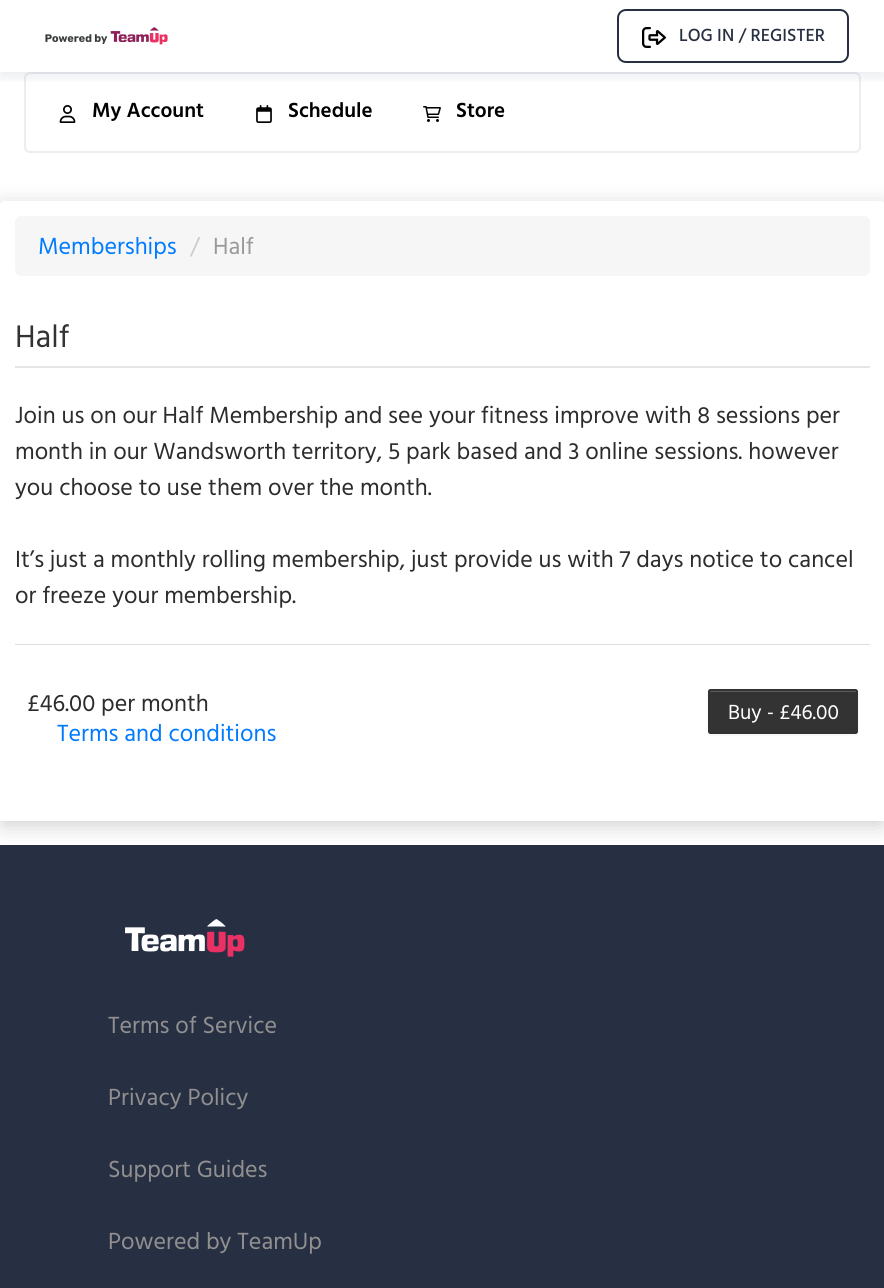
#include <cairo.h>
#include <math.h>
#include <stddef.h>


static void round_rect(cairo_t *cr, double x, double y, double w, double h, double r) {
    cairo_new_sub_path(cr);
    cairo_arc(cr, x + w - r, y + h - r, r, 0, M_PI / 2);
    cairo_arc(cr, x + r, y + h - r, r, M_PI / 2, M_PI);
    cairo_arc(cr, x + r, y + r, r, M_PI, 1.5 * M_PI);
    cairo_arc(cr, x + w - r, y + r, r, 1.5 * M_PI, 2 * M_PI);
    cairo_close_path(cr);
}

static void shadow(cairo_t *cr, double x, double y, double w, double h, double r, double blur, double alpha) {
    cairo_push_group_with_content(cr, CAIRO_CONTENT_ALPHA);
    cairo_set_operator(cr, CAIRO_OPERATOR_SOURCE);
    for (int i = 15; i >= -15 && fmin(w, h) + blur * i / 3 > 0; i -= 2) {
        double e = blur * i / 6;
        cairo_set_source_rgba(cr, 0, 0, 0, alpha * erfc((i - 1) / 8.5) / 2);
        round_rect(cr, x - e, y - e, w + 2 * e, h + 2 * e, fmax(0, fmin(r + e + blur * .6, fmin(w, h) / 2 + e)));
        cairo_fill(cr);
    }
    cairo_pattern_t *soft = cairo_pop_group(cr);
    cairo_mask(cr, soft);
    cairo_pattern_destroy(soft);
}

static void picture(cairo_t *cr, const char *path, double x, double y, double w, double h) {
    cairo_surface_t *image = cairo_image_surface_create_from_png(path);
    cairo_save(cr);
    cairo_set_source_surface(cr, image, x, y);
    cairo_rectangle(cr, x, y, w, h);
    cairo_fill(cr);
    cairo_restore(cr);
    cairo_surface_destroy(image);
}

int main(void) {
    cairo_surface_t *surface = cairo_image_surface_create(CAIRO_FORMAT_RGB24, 884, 1288);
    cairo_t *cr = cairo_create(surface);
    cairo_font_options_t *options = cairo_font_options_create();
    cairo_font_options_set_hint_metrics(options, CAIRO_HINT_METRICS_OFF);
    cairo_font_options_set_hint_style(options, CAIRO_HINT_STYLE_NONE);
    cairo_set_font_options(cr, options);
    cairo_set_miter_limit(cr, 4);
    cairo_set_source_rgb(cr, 1, 1, 1);
    cairo_paint(cr);
    round_rect(cr, 25, 73, 835, 79, 5);
    cairo_set_source_rgb(cr, 0.922, 0.929, 0.941);
    cairo_stroke(cr);
    cairo_save(cr);
    cairo_rectangle(cr, 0, 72, 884, 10);
    cairo_clip(cr);
    cairo_set_source_rgb(cr, 0.09, 0.125, 0.306);
    shadow(cr, 0, 6, 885, 72, 0, 6, 0.08);
    cairo_restore(cr);
    picture(cr, "img1.png", 45, 27, 123, 18);
    round_rect(cr, 618, 10, 230, 52, 8);
    cairo_set_source_rgb(cr, 0.153, 0.188, 0.263);
    cairo_stroke(cr);
    picture(cr, "img2.png", 642, 27, 24, 21);
    cairo_select_font_face(cr, "Hind Medium", CAIRO_FONT_SLANT_NORMAL, CAIRO_FONT_WEIGHT_NORMAL);
    cairo_set_font_size(cr, 18);
    cairo_move_to(cr, 679, 41);
    cairo_show_text(cr, "LOG IN / REGISTER");
    picture(cr, "img3.png", 59, 105, 17, 18);
    cairo_select_font_face(cr, "Hind SemiBold", CAIRO_FONT_SLANT_NORMAL, CAIRO_FONT_WEIGHT_NORMAL);
    cairo_set_font_size(cr, 21);
    cairo_set_source_rgb(cr, 0, 0, 0);
    cairo_move_to(cr, 92, 117);
    cairo_show_text(cr, "My Account");
    picture(cr, "img4.png", 256, 105, 16, 18);
    cairo_move_to(cr, 288, 117);
    cairo_show_text(cr, "Schedule");
    picture(cr, "img5.png", 423, 106, 18, 16);
    cairo_move_to(cr, 456, 117);
    cairo_show_text(cr, "Store");
    cairo_set_source_rgb(cr, 0, 0, 0);
    shadow(cr, 0, 206, 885, 619, 5, 11, 0.2);
    cairo_set_source_rgb(cr, 1, 1, 1);
    cairo_new_path(cr);
    cairo_move_to(cr, 5, 201);
    cairo_line_to(cr, 880, 201);
    cairo_curve_to(cr, 883, 201, 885, 203, 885, 206);
    cairo_line_to(cr, 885, 821);
    cairo_line_to(cr, 0, 821);
    cairo_line_to(cr, 0, 206);
    cairo_curve_to(cr, 0, 203, 2, 201, 5, 201);
    cairo_close_path(cr);
    cairo_fill(cr);
    cairo_set_source_rgb(cr, 0.961, 0.961, 0.961);
    round_rect(cr, 15, 216, 855, 60, 6);
    cairo_fill(cr);
    cairo_select_font_face(cr, "Hind", CAIRO_FONT_SLANT_NORMAL, CAIRO_FONT_WEIGHT_NORMAL);
    cairo_set_font_size(cr, 24);
    cairo_set_source_rgb(cr, 0, 0.482, 1);
    cairo_move_to(cr, 38, 254);
    cairo_show_text(cr, "Memberships");
    cairo_set_source_rgb(cr, 0.8, 0.8, 0.8);
    cairo_move_to(cr, 190, 254);
    cairo_show_text(cr, "/");
    cairo_set_source_rgb(cr, 0.6, 0.6, 0.6);
    cairo_move_to(cr, 213, 254);
    cairo_show_text(cr, "Half");
    cairo_set_source_rgb(cr, 0.898, 0.898, 0.898);
    cairo_rectangle(cr, 15, 366, 855, 2);
    cairo_fill(cr);
    cairo_set_font_size(cr, 32);
    cairo_set_source_rgb(cr, 0.2, 0.2, 0.2);
    cairo_move_to(cr, 15, 347);
    cairo_show_text(cr, "Half");
    cairo_set_font_size(cr, 24);
    cairo_set_source_rgb(cr, 0.173, 0.173, 0.173);
    cairo_move_to(cr, 15, 423);
    cairo_show_text(cr, "Join us on our Half Membership and see your fitness improve with 8 sessions per");
    cairo_move_to(cr, 15, 459);
    cairo_show_text(cr, "month in our Wandsworth territory, 5 park based and 3 online sessions. however");
    cairo_move_to(cr, 15, 495);
    cairo_show_text(cr, "you choose to use them over the month.");
    cairo_move_to(cr, 15, 567);
    cairo_show_text(cr, "It’s just a monthly rolling membership, just provide us with 7 days notice to cancel");
    cairo_move_to(cr, 15, 603);
    cairo_show_text(cr, "or freeze your membership.");
    cairo_set_source_rgb(cr, 0.867, 0.867, 0.886);
    cairo_rectangle(cr, 15, 644, 855, 1);
    cairo_fill(cr);
    cairo_set_source_rgb(cr, 0.173, 0.173, 0.173);
    cairo_move_to(cr, 27, 711);
    cairo_show_text(cr, "£46.00 per month");
    cairo_set_source_rgb(cr, 0, 0, 0);
    shadow(cr, 708, 690, 150, 45, 3, 1.5, 0.05);
    cairo_set_source_rgb(cr, 0.2, 0.2, 0.2);
    round_rect(cr, 708, 689, 150, 45, 3);
    cairo_fill(cr);
    cairo_set_source_rgb(cr, 0.361, 0.361, 0.361);
    cairo_new_path(cr);
    cairo_move_to(cr, 711, 692);
    cairo_line_to(cr, 855, 692);
    cairo_curve_to(cr, 856, 692, 856, 692, 856, 693);
    cairo_line_to(cr, 856, 732);
    cairo_curve_to(cr, 857, 732, 857, 731, 857, 730);
    cairo_line_to(cr, 857, 692);
    cairo_curve_to(cr, 857, 691, 856, 690, 856, 690);
    cairo_line_to(cr, 712, 690);
    cairo_curve_to(cr, 711, 690, 710, 691, 710, 692);
    cairo_line_to(cr, 710, 693);
    cairo_curve_to(cr, 710, 692, 710, 692, 711, 692);
    cairo_close_path(cr);
    cairo_fill(cr);
    round_rect(cr, 709, 690, 148, 43, 2);
    cairo_set_source_rgb(cr, 0.2, 0.2, 0.2);
    cairo_stroke(cr);
    cairo_set_font_size(cr, 21);
    cairo_set_source_rgb(cr, 1, 1, 1);
    cairo_move_to(cr, 728, 719);
    cairo_show_text(cr, "Buy - £46.00");
    cairo_set_font_size(cr, 24);
    cairo_set_source_rgb(cr, 0, 0.482, 1);
    cairo_move_to(cr, 57, 741);
    cairo_show_text(cr, "Terms and conditions");
    cairo_set_source_rgb(cr, 0.153, 0.188, 0.263);
    cairo_rectangle(cr, 0, 845, 884, 443);
    cairo_fill(cr);
    picture(cr, "img6.png", 125, 919, 120, 38);
    cairo_set_source_rgb(cr, 0.569, 0.561, 0.565);
    cairo_move_to(cr, 108, 1033);
    cairo_show_text(cr, "Terms of Service");
    cairo_move_to(cr, 108, 1105);
    cairo_show_text(cr, "Privacy Policy");
    cairo_move_to(cr, 108, 1177);
    cairo_show_text(cr, "Support Guides");
    cairo_move_to(cr, 108, 1249);
    cairo_show_text(cr, "Powered by TeamUp");
    cairo_surface_write_to_png(surface, "page.png");
    cairo_font_options_destroy(options);
    cairo_destroy(cr);
    cairo_surface_destroy(surface);
    return 0;
}
